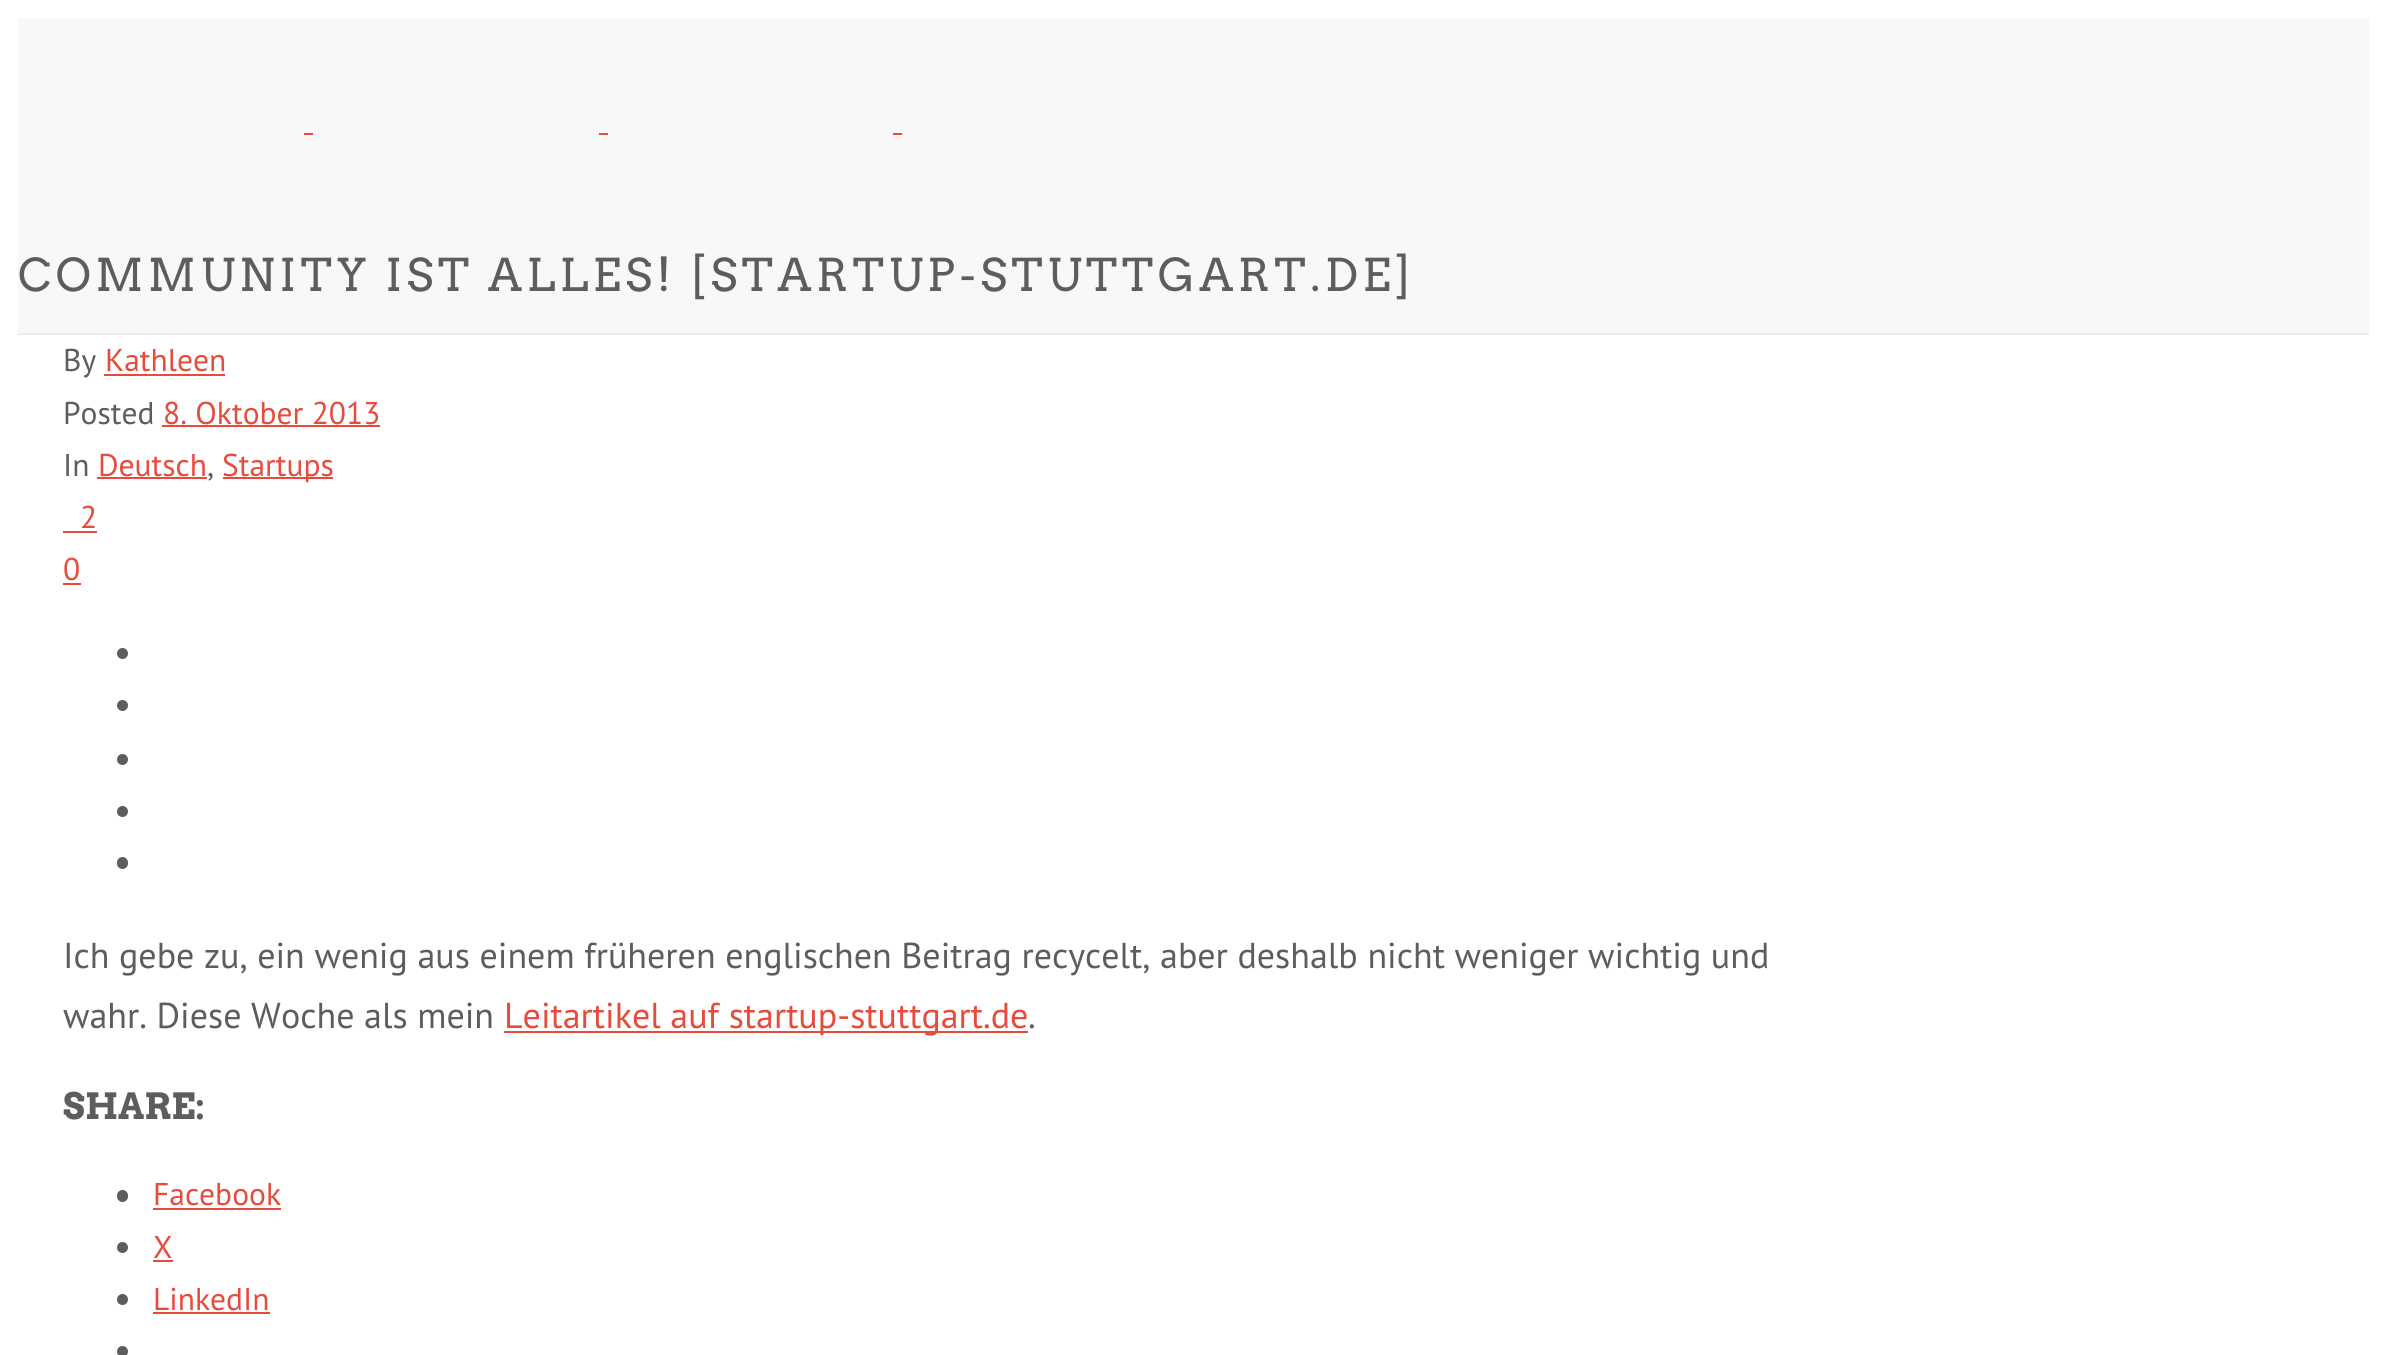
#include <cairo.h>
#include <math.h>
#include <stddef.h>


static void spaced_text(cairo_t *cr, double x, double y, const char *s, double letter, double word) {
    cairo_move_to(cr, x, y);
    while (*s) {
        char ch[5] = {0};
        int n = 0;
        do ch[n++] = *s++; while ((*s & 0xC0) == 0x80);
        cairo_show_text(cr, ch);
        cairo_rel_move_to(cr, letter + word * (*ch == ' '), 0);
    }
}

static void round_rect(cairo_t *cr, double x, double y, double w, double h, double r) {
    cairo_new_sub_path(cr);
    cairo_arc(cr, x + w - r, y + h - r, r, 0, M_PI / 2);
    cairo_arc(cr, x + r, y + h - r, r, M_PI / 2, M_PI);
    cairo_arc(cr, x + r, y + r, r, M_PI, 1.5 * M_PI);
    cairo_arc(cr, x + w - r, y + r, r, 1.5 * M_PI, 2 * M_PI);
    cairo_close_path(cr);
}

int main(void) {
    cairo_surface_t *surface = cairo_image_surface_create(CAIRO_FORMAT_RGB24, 2387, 1355);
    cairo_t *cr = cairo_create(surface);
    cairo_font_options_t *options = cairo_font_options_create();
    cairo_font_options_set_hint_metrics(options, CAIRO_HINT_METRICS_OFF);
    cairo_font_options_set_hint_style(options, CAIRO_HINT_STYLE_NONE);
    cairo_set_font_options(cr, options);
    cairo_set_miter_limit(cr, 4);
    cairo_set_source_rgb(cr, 1, 1, 1);
    cairo_paint(cr);
    cairo_set_source_rgb(cr, 0.969, 0.969, 0.969);
    cairo_rectangle(cr, 18, 18, 2351, 315);
    cairo_fill(cr);
    cairo_set_source_rgb(cr, 0.929, 0.929, 0.929);
    cairo_rectangle(cr, 18, 333, 2351, 2);
    cairo_fill(cr);
    cairo_set_source_rgb(cr, 0.906, 0.294, 0.231);
    cairo_rectangle(cr, 304, 133, 9, 2);
    cairo_fill(cr);
    cairo_rectangle(cr, 599, 133, 9, 2);
    cairo_fill(cr);
    cairo_rectangle(cr, 893, 133, 9, 2);
    cairo_fill(cr);
    cairo_select_font_face(cr, "Arvo", CAIRO_FONT_SLANT_NORMAL, CAIRO_FONT_WEIGHT_NORMAL);
    cairo_set_font_size(cr, 45);
    cairo_set_source_rgb(cr, 0.365, 0.365, 0.376);
    spaced_text(cr, 18, 291, "COMMUNITY IST ALLES! [STARTUP-STUTTGART.DE]", 4.5, 0);
    cairo_select_font_face(cr, "PT Sans", CAIRO_FONT_SLANT_NORMAL, CAIRO_FONT_WEIGHT_NORMAL);
    cairo_set_font_size(cr, 31.5);
    cairo_move_to(cr, 63, 371);
    cairo_show_text(cr, "By");
    cairo_set_source_rgb(cr, 0.906, 0.294, 0.231);
    cairo_move_to(cr, 105, 371);
    cairo_show_text(cr, "Kathleen");
    cairo_rectangle(cr, 104, 374, 121, 2);
    cairo_fill(cr);
    cairo_set_source_rgb(cr, 0.365, 0.365, 0.376);
    cairo_move_to(cr, 63, 424);
    cairo_show_text(cr, "Posted");
    cairo_set_source_rgb(cr, 0.906, 0.294, 0.231);
    cairo_move_to(cr, 163, 424);
    cairo_show_text(cr, "8. Oktober 2013");
    cairo_rectangle(cr, 162, 425, 218, 2);
    cairo_fill(cr);
    cairo_set_source_rgb(cr, 0.365, 0.365, 0.376);
    cairo_move_to(cr, 63, 476);
    cairo_show_text(cr, "In");
    cairo_set_source_rgb(cr, 0.906, 0.294, 0.231);
    cairo_move_to(cr, 98, 476);
    cairo_show_text(cr, "Deutsch");
    cairo_rectangle(cr, 97, 477, 110, 2);
    cairo_fill(cr);
    cairo_set_source_rgb(cr, 0.365, 0.365, 0.376);
    cairo_move_to(cr, 207, 476);
    cairo_show_text(cr, ",");
    cairo_set_source_rgb(cr, 0.906, 0.294, 0.231);
    cairo_rectangle(cr, 223, 477, 110, 2);
    cairo_fill(cr);
    cairo_move_to(cr, 222, 476);
    cairo_show_text(cr, "Startups");
    cairo_move_to(cr, 80, 528);
    cairo_show_text(cr, "2");
    cairo_rectangle(cr, 63, 531, 34, 2);
    cairo_fill(cr);
    cairo_move_to(cr, 63, 580);
    cairo_show_text(cr, "0");
    cairo_rectangle(cr, 63, 583, 18, 2);
    cairo_fill(cr);
    cairo_set_source_rgb(cr, 0.365, 0.365, 0.376);
    cairo_arc(cr, 122.5, 653.5, 5.5, 0, 2 * M_PI);
    cairo_fill(cr);
    cairo_arc(cr, 122.5, 705.5, 5.5, 0, 2 * M_PI);
    cairo_fill(cr);
    cairo_arc(cr, 122.5, 759.5, 5.5, 0, 2 * M_PI);
    cairo_fill(cr);
    cairo_arc(cr, 122.5, 811.5, 5.5, 0, 2 * M_PI);
    cairo_fill(cr);
    round_rect(cr, 117, 857, 11, 12, 5.5);
    cairo_fill(cr);
    cairo_set_font_size(cr, 36);
    cairo_move_to(cr, 63, 968);
    cairo_show_text(cr, "Ich gebe zu, ein wenig aus einem früheren englischen Beitrag recycelt, aber deshalb nicht weniger wichtig und");
    cairo_move_to(cr, 63, 1028);
    cairo_show_text(cr, "wahr. Diese Woche als mein");
    cairo_set_source_rgb(cr, 0.906, 0.294, 0.231);
    cairo_rectangle(cr, 504, 1031, 524, 2);
    cairo_fill(cr);
    cairo_move_to(cr, 504, 1028);
    cairo_show_text(cr, "Leitartikel auf startup-stuttgart.de");
    cairo_set_source_rgb(cr, 0.365, 0.365, 0.376);
    cairo_move_to(cr, 1028, 1028);
    cairo_show_text(cr, ".");
    cairo_select_font_face(cr, "Arvo", CAIRO_FONT_SLANT_NORMAL, CAIRO_FONT_WEIGHT_BOLD);
    cairo_move_to(cr, 63, 1119);
    cairo_show_text(cr, "SHARE:");
    round_rect(cr, 117, 1190, 11, 12, 5.5);
    cairo_fill(cr);
    cairo_select_font_face(cr, "PT Sans", CAIRO_FONT_SLANT_NORMAL, CAIRO_FONT_WEIGHT_NORMAL);
    cairo_set_font_size(cr, 31.5);
    cairo_set_source_rgb(cr, 0.906, 0.294, 0.231);
    cairo_move_to(cr, 153, 1205);
    cairo_show_text(cr, "Facebook");
    cairo_rectangle(cr, 153, 1208, 128, 2);
    cairo_fill(cr);
    cairo_set_source_rgb(cr, 0.365, 0.365, 0.376);
    cairo_arc(cr, 122.5, 1247.5, 5.5, 0, 2 * M_PI);
    cairo_fill(cr);
    cairo_set_source_rgb(cr, 0.906, 0.294, 0.231);
    cairo_move_to(cr, 153, 1258);
    cairo_show_text(cr, "X");
    cairo_rectangle(cr, 153, 1260, 20, 2);
    cairo_fill(cr);
    cairo_set_source_rgb(cr, 0.365, 0.365, 0.376);
    cairo_arc(cr, 122.5, 1299.5, 5.5, 0, 2 * M_PI);
    cairo_fill(cr);
    cairo_set_source_rgb(cr, 0.906, 0.294, 0.231);
    cairo_move_to(cr, 153, 1310);
    cairo_show_text(cr, "LinkedIn");
    cairo_rectangle(cr, 153, 1312, 117, 2);
    cairo_fill(cr);
    cairo_set_source_rgb(cr, 0.365, 0.365, 0.376);
    cairo_arc(cr, 122.5, 1351.5, 5.5, 0, 2 * M_PI);
    cairo_fill(cr);
    cairo_surface_write_to_png(surface, "page.png");
    cairo_font_options_destroy(options);
    cairo_destroy(cr);
    cairo_surface_destroy(surface);
    return 0;
}
